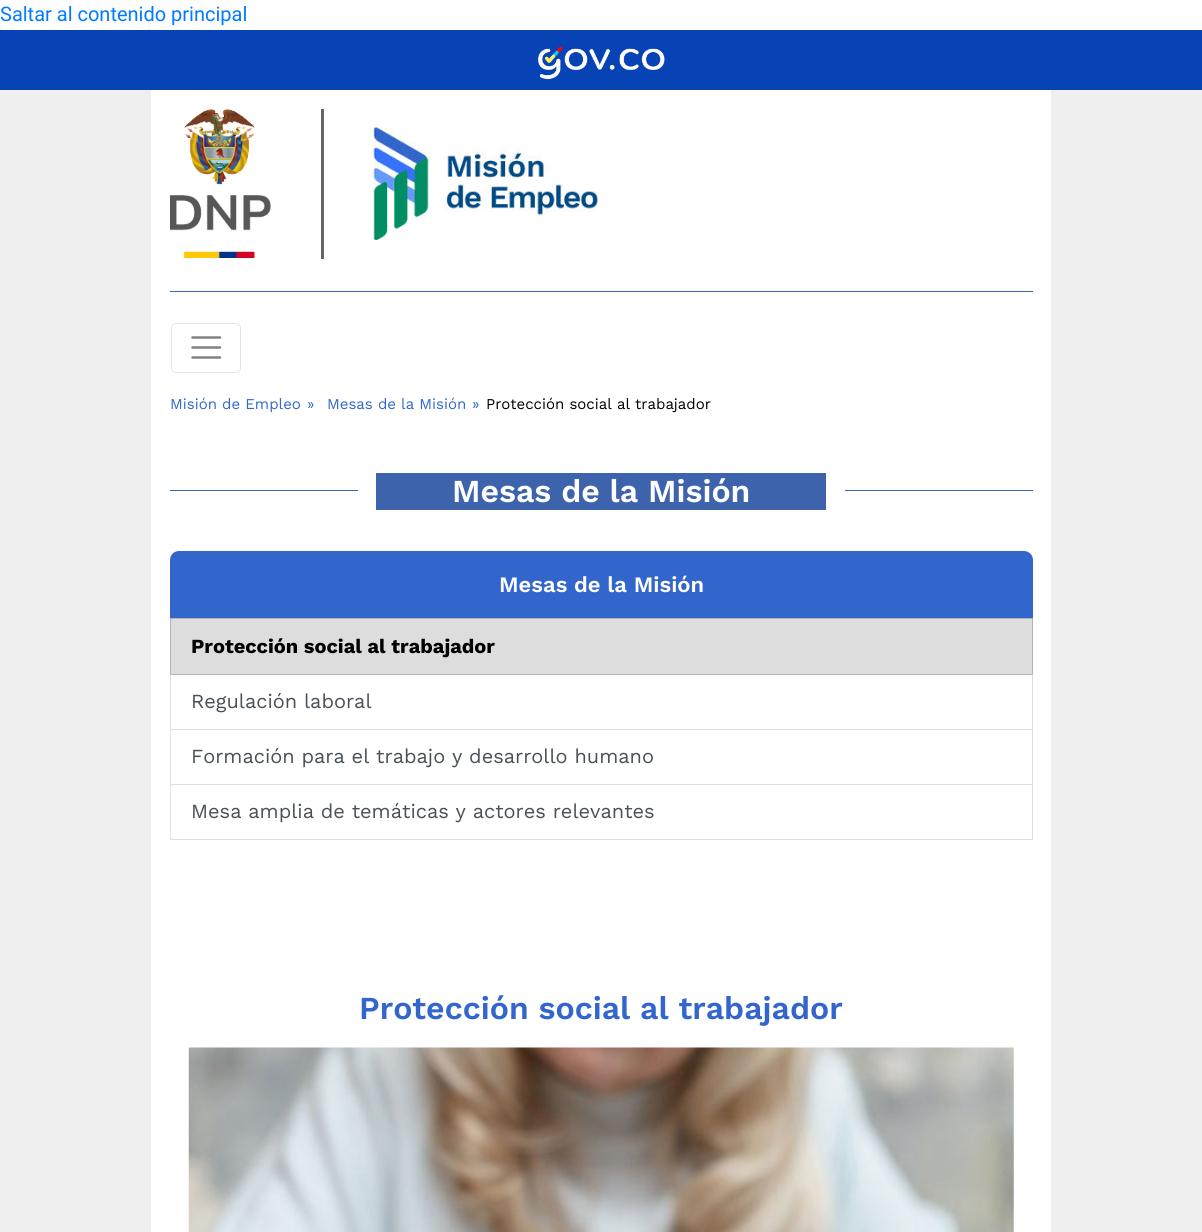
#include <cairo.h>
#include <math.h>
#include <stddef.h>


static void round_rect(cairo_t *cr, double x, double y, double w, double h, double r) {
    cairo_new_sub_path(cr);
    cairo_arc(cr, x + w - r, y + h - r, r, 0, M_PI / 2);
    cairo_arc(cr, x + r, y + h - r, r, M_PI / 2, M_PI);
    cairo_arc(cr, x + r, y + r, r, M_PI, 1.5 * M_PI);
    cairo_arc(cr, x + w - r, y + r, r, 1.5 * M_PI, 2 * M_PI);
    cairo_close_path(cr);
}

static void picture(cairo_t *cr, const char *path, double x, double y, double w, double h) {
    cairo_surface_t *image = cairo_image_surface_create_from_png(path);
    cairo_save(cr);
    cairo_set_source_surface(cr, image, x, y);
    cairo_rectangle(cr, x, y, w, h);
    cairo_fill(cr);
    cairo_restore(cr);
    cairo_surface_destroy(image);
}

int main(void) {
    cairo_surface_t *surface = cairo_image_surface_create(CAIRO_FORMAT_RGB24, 1202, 1232);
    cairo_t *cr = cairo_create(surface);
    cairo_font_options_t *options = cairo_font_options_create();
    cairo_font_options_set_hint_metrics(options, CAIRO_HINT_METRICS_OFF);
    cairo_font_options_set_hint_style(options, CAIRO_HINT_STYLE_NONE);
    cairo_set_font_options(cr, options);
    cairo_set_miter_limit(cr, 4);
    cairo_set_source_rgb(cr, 1, 1, 1);
    cairo_paint(cr);
    cairo_select_font_face(cr, "Roboto", CAIRO_FONT_SLANT_NORMAL, CAIRO_FONT_WEIGHT_NORMAL);
    cairo_set_font_size(cr, 20);
    cairo_set_source_rgb(cr, 0, 0.482, 1);
    cairo_move_to(cr, 0, 21);
    cairo_show_text(cr, "Saltar al contenido principal");
    cairo_set_source_rgb(cr, 0.937, 0.937, 0.937);
    cairo_rectangle(cr, 0, 90, 1202, 1142);
    cairo_fill(cr);
    cairo_set_source_rgb(cr, 0.035, 0.263, 0.71);
    cairo_rectangle(cr, 0, 30, 1202, 60);
    cairo_fill(cr);
    picture(cr, "img1.png", 538, 46, 127, 34);
    cairo_set_source_rgb(cr, 1, 1, 1);
    cairo_rectangle(cr, 151, 90, 900, 223);
    cairo_fill(cr);
    cairo_set_source_rgb(cr, 0.2, 0.4, 0.8);
    cairo_rectangle(cr, 170, 291, 863, 1);
    cairo_fill(cr);
    cairo_set_source_rgb(cr, 0.4, 0.4, 0.4);
    cairo_rectangle(cr, 321, 109, 3, 150);
    cairo_fill(cr);
    picture(cr, "img2.png", 170, 109, 101, 149);
    picture(cr, "img3.png", 373, 127, 225, 113);
    cairo_set_source_rgb(cr, 1, 1, 1);
    cairo_rectangle(cr, 151, 313, 900, 919);
    cairo_fill(cr);
    round_rect(cr, 171.5, 323.5, 69, 49, 4.5);
    cairo_set_source_rgb(cr, 0.902, 0.902, 0.902);
    cairo_set_line_width(cr, 1);
    cairo_stroke(cr);
    cairo_new_path(cr);
    cairo_move_to(cr, 192.5, 337.5);
    cairo_line_to(cr, 220, 337.5);
    cairo_move_to(cr, 192.5, 347.5);
    cairo_line_to(cr, 220, 347.5);
    cairo_move_to(cr, 192.5, 357.5);
    cairo_line_to(cr, 220, 357.5);
    cairo_set_source_rgb(cr, 0.502, 0.502, 0.502);
    cairo_set_line_width(cr, 2.5);
    cairo_set_line_cap(cr, CAIRO_LINE_CAP_ROUND);
    cairo_stroke(cr);
    cairo_select_font_face(cr, "Work Sans", CAIRO_FONT_SLANT_NORMAL, CAIRO_FONT_WEIGHT_NORMAL);
    cairo_set_font_size(cr, 15);
    cairo_set_source_rgb(cr, 0.2, 0.4, 0.8);
    cairo_move_to(cr, 170, 409);
    cairo_show_text(cr, "Misión de Empleo");
    cairo_move_to(cr, 307, 409);
    cairo_show_text(cr, "»");
    cairo_move_to(cr, 327, 409);
    cairo_show_text(cr, "Mesas de la Misión");
    cairo_move_to(cr, 472, 409);
    cairo_show_text(cr, "»");
    cairo_set_source_rgb(cr, 0, 0, 0);
    cairo_move_to(cr, 486, 409);
    cairo_show_text(cr, "Protección social al trabajador");
    cairo_set_source_rgb(cr, 0.235, 0.388, 0.671);
    cairo_rectangle(cr, 170, 490, 188, 1);
    cairo_fill(cr);
    cairo_rectangle(cr, 376, 473, 450, 37);
    cairo_fill(cr);
    cairo_select_font_face(cr, "Work Sans SemiBold", CAIRO_FONT_SLANT_NORMAL, CAIRO_FONT_WEIGHT_NORMAL);
    cairo_set_font_size(cr, 32);
    cairo_set_source_rgb(cr, 1, 1, 1);
    cairo_move_to(cr, 452, 502);
    cairo_show_text(cr, "Mesas de la Misión");
    cairo_set_source_rgb(cr, 0.235, 0.388, 0.671);
    cairo_rectangle(cr, 845, 490, 188, 1);
    cairo_fill(cr);
    cairo_set_source_rgb(cr, 0.2, 0.4, 0.8);
    cairo_new_path(cr);
    cairo_move_to(cr, 179, 551);
    cairo_line_to(cr, 1024, 551);
    cairo_curve_to(cr, 1029, 551, 1033, 555, 1033, 560);
    cairo_line_to(cr, 1033, 618);
    cairo_line_to(cr, 170, 618);
    cairo_line_to(cr, 170, 560);
    cairo_curve_to(cr, 170, 555, 174, 551, 179, 551);
    cairo_close_path(cr);
    cairo_fill(cr);
    cairo_set_font_size(cr, 22);
    cairo_set_source_rgb(cr, 1, 1, 1);
    cairo_move_to(cr, 499, 592);
    cairo_show_text(cr, "Mesas de la Misión");
    cairo_rectangle(cr, 170.5, 674.5, 862, 55);
    cairo_set_source_rgb(cr, 0.875, 0.875, 0.875);
    cairo_set_line_width(cr, 1);
    cairo_set_line_cap(cr, CAIRO_LINE_CAP_BUTT);
    cairo_stroke(cr);
    cairo_set_source_rgb(cr, 0.867, 0.867, 0.867);
    cairo_rectangle(cr, 170.5, 618.5, 862, 56);
    cairo_fill_preserve(cr);
    cairo_set_source_rgb(cr, 0.702, 0.702, 0.702);
    cairo_stroke(cr);
    cairo_select_font_face(cr, "Work Sans", CAIRO_FONT_SLANT_NORMAL, CAIRO_FONT_WEIGHT_BOLD);
    cairo_set_font_size(cr, 20);
    cairo_set_source_rgb(cr, 0, 0, 0);
    cairo_move_to(cr, 191, 653);
    cairo_show_text(cr, "Protección social al trabajador");
    cairo_select_font_face(cr, "Work Sans", CAIRO_FONT_SLANT_NORMAL, CAIRO_FONT_WEIGHT_NORMAL);
    cairo_set_source_rgb(cr, 0.286, 0.314, 0.341);
    cairo_move_to(cr, 191, 708);
    cairo_show_text(cr, "Regulación laboral");
    cairo_rectangle(cr, 170.5, 729.5, 862, 55);
    cairo_set_source_rgb(cr, 0.875, 0.875, 0.875);
    cairo_stroke(cr);
    cairo_set_source_rgb(cr, 0.286, 0.314, 0.341);
    cairo_move_to(cr, 191, 763);
    cairo_show_text(cr, "Formación para el trabajo y desarrollo humano");
    cairo_rectangle(cr, 170.5, 784.5, 862, 55);
    cairo_set_source_rgb(cr, 0.875, 0.875, 0.875);
    cairo_stroke(cr);
    cairo_set_source_rgb(cr, 0.286, 0.314, 0.341);
    cairo_move_to(cr, 191, 818);
    cairo_show_text(cr, "Mesa amplia de temáticas y actores relevantes");
    cairo_select_font_face(cr, "Work Sans SemiBold", CAIRO_FONT_SLANT_NORMAL, CAIRO_FONT_WEIGHT_NORMAL);
    cairo_set_font_size(cr, 32);
    cairo_set_source_rgb(cr, 0.2, 0.4, 0.8);
    cairo_move_to(cr, 359, 1019);
    cairo_show_text(cr, "Protección social al trabajador");
    picture(cr, "img4.png", 188, 1047, 826, 185);
    cairo_surface_write_to_png(surface, "page.png");
    cairo_font_options_destroy(options);
    cairo_destroy(cr);
    cairo_surface_destroy(surface);
    return 0;
}
